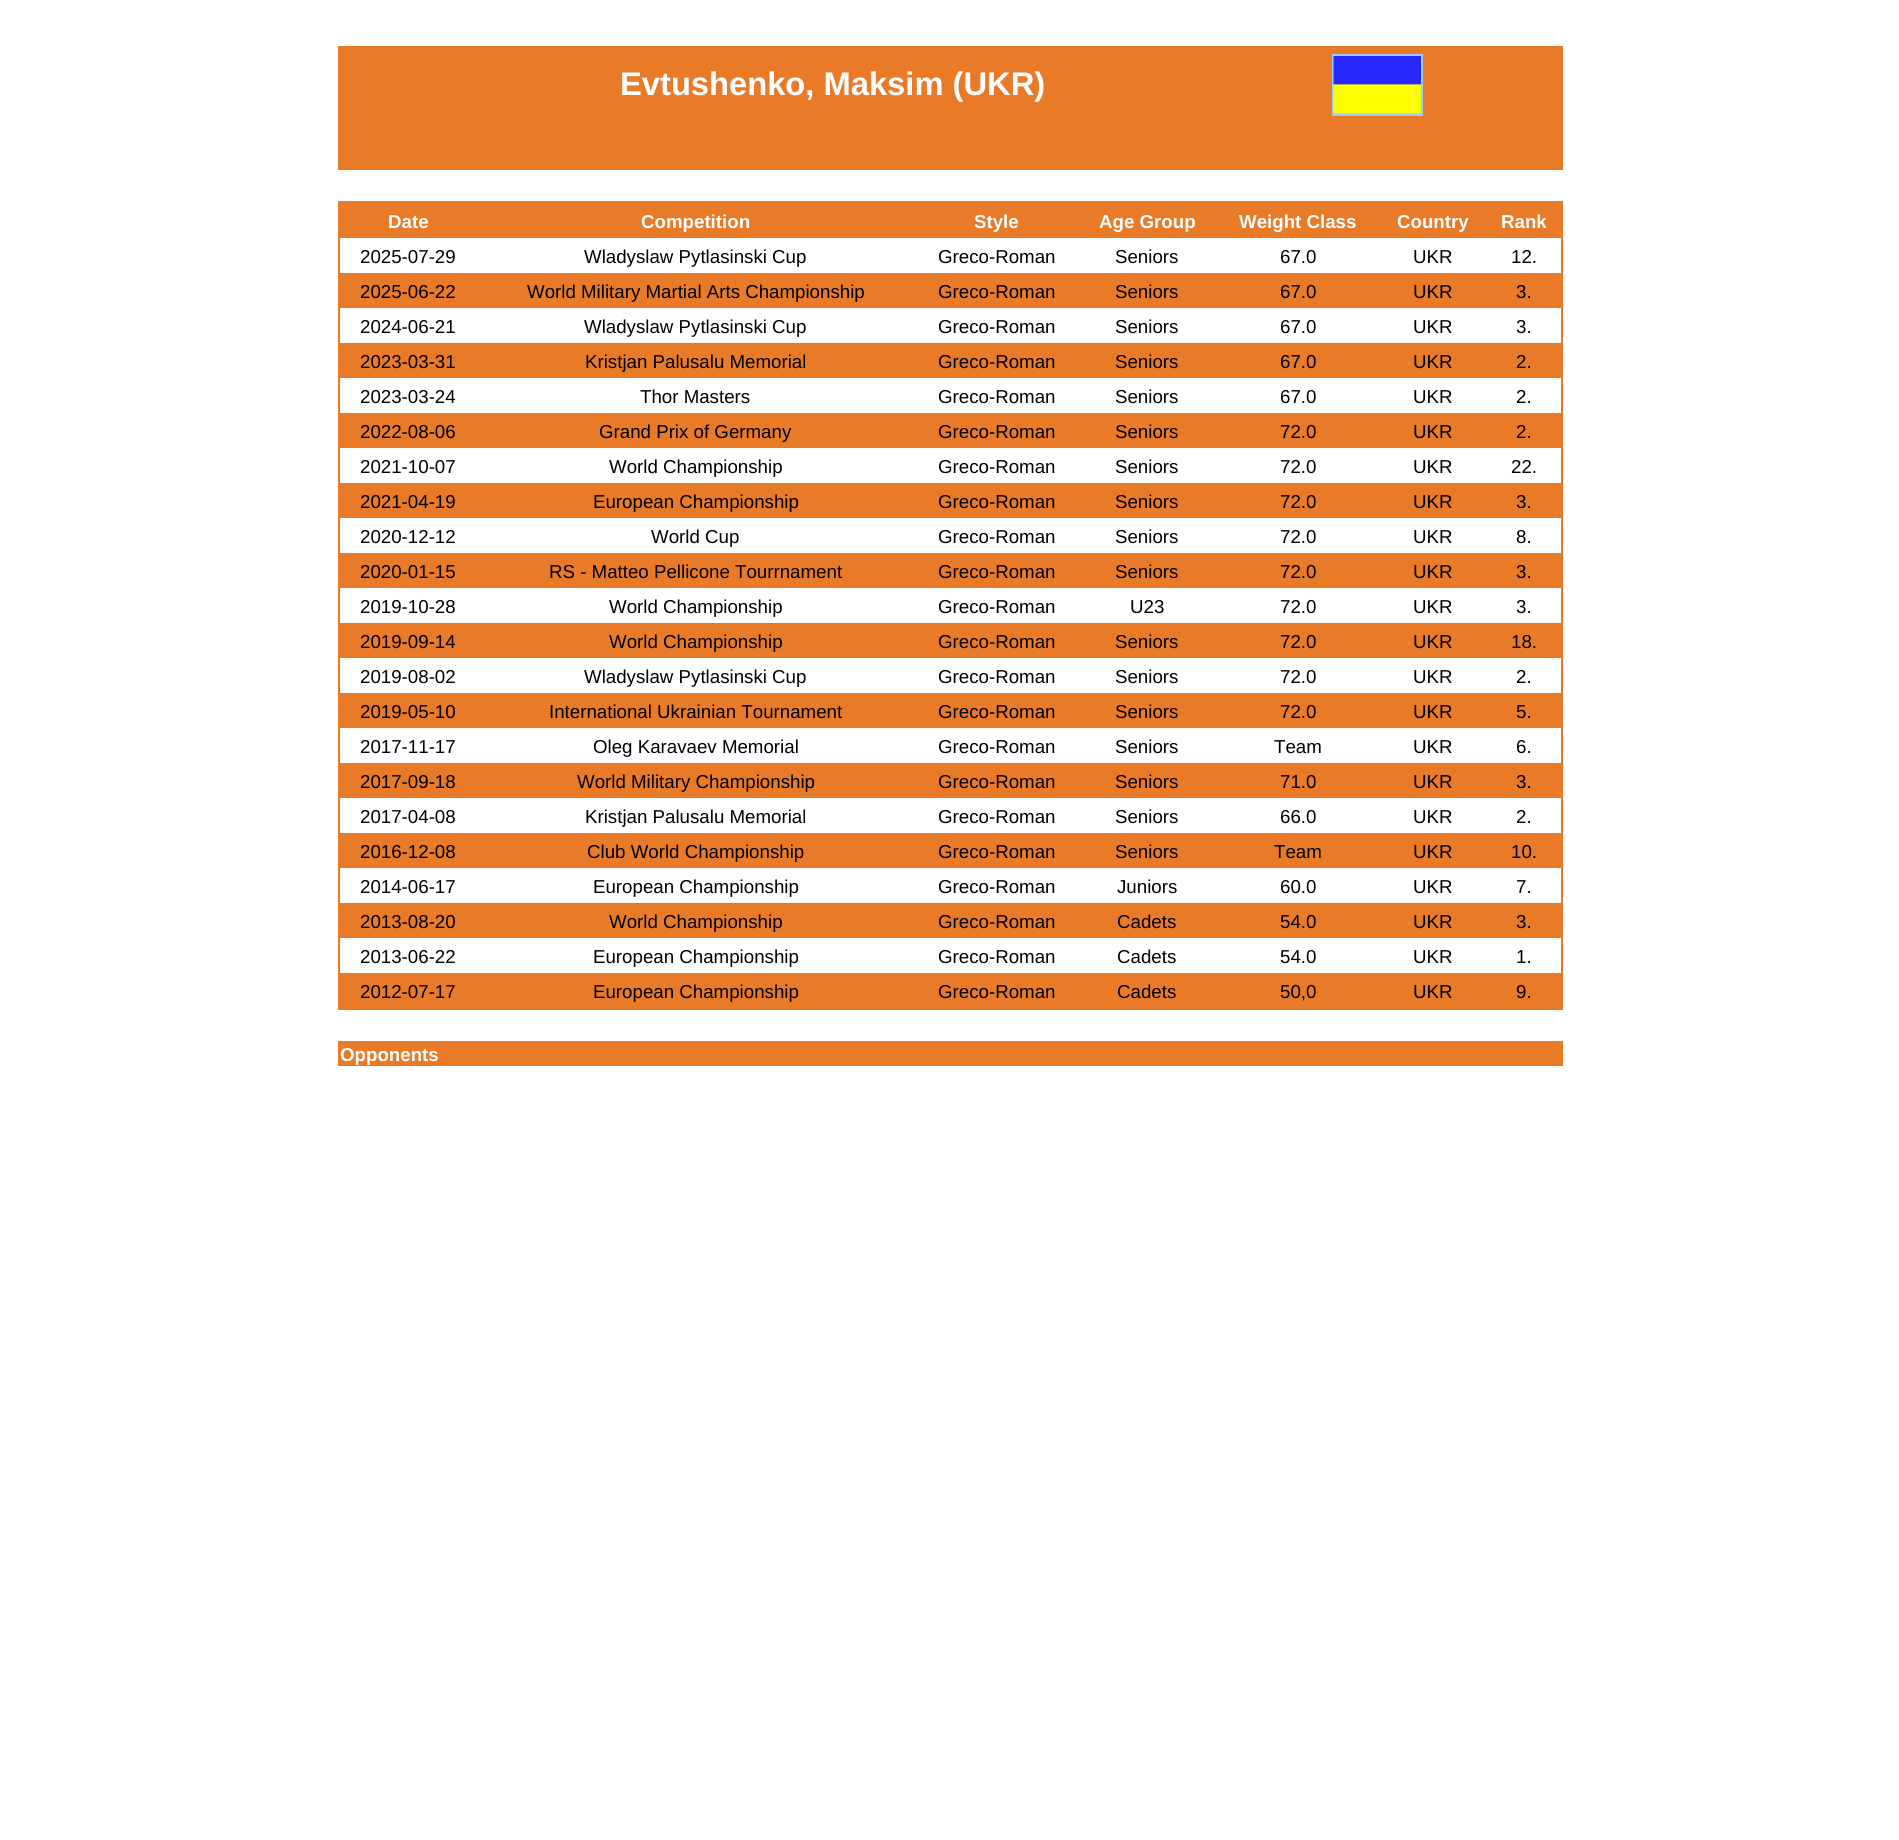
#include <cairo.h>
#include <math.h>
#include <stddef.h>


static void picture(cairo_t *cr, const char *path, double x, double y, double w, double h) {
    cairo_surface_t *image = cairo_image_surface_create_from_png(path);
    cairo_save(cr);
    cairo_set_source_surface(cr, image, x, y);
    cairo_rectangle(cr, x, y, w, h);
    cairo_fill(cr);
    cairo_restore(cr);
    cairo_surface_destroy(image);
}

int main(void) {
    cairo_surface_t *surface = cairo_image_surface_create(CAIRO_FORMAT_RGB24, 1899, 1840);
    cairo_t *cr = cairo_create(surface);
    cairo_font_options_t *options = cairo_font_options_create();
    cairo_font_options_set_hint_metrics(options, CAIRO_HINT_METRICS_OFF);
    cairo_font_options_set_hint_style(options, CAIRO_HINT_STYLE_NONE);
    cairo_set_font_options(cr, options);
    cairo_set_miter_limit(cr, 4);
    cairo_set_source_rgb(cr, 1, 1, 1);
    cairo_paint(cr);
    cairo_set_source_rgb(cr, 0.91, 0.478, 0.157);
    cairo_rectangle(cr, 338, 46, 1225, 124);
    cairo_fill(cr);
    cairo_select_font_face(cr, "Liberation Sans", CAIRO_FONT_SLANT_NORMAL, CAIRO_FONT_WEIGHT_BOLD);
    cairo_set_font_size(cr, 32.7);
    cairo_set_source_rgb(cr, 1, 1, 1);
    cairo_move_to(cr, 620, 95);
    cairo_show_text(cr, "Evtushenko, Maksim (UKR)");
    cairo_rectangle(cr, 1333, 55, 89, 60);
    cairo_set_source_rgb(cr, 0.6, 0.8, 1);
    cairo_stroke(cr);
    picture(cr, "img1.png", 1333, 56, 88, 58);
    cairo_set_source_rgb(cr, 0.91, 0.478, 0.157);
    cairo_rectangle(cr, 338, 201, 1225, 809);
    cairo_fill(cr);
    cairo_set_font_size(cr, 18.7);
    cairo_set_source_rgb(cr, 1, 1, 1);
    cairo_move_to(cr, 388, 228);
    cairo_show_text(cr, "Date");
    cairo_move_to(cr, 641, 228);
    cairo_show_text(cr, "Competition");
    cairo_move_to(cr, 974, 228);
    cairo_show_text(cr, "Style");
    cairo_move_to(cr, 1099, 228);
    cairo_show_text(cr, "Age Group");
    cairo_move_to(cr, 1239, 228);
    cairo_show_text(cr, "Weight Class");
    cairo_move_to(cr, 1397, 228);
    cairo_show_text(cr, "Country");
    cairo_move_to(cr, 1501, 228);
    cairo_show_text(cr, "Rank");
    cairo_rectangle(cr, 340, 238, 1221, 35);
    cairo_fill(cr);
    cairo_select_font_face(cr, "Liberation Sans", CAIRO_FONT_SLANT_NORMAL, CAIRO_FONT_WEIGHT_NORMAL);
    cairo_set_source_rgb(cr, 0, 0, 0);
    cairo_move_to(cr, 360, 263);
    cairo_show_text(cr, "2025-07-29");
    cairo_move_to(cr, 584, 263);
    cairo_show_text(cr, "Wladyslaw Pytlasinski Cup");
    cairo_move_to(cr, 938, 263);
    cairo_show_text(cr, "Greco-Roman");
    cairo_move_to(cr, 1115, 263);
    cairo_show_text(cr, "Seniors");
    cairo_move_to(cr, 1280, 263);
    cairo_show_text(cr, "67.0");
    cairo_move_to(cr, 1413, 263);
    cairo_show_text(cr, "UKR");
    cairo_move_to(cr, 1511, 263);
    cairo_show_text(cr, "12.");
    cairo_move_to(cr, 360, 298);
    cairo_show_text(cr, "2025-06-22");
    cairo_move_to(cr, 527, 298);
    cairo_show_text(cr, "World Military Martial Arts Championship");
    cairo_move_to(cr, 938, 298);
    cairo_show_text(cr, "Greco-Roman");
    cairo_move_to(cr, 1115, 298);
    cairo_show_text(cr, "Seniors");
    cairo_move_to(cr, 1280, 298);
    cairo_show_text(cr, "67.0");
    cairo_move_to(cr, 1413, 298);
    cairo_show_text(cr, "UKR");
    cairo_move_to(cr, 1516, 298);
    cairo_show_text(cr, "3.");
    cairo_set_source_rgb(cr, 1, 1, 1);
    cairo_rectangle(cr, 340, 308, 1221, 35);
    cairo_fill(cr);
    cairo_set_source_rgb(cr, 0, 0, 0);
    cairo_move_to(cr, 360, 333);
    cairo_show_text(cr, "2024-06-21");
    cairo_move_to(cr, 584, 333);
    cairo_show_text(cr, "Wladyslaw Pytlasinski Cup");
    cairo_move_to(cr, 938, 333);
    cairo_show_text(cr, "Greco-Roman");
    cairo_move_to(cr, 1115, 333);
    cairo_show_text(cr, "Seniors");
    cairo_move_to(cr, 1280, 333);
    cairo_show_text(cr, "67.0");
    cairo_move_to(cr, 1413, 333);
    cairo_show_text(cr, "UKR");
    cairo_move_to(cr, 1516, 333);
    cairo_show_text(cr, "3.");
    cairo_move_to(cr, 360, 368);
    cairo_show_text(cr, "2023-03-31");
    cairo_move_to(cr, 585, 368);
    cairo_show_text(cr, "Kristjan Palusalu Memorial");
    cairo_move_to(cr, 938, 368);
    cairo_show_text(cr, "Greco-Roman");
    cairo_move_to(cr, 1115, 368);
    cairo_show_text(cr, "Seniors");
    cairo_move_to(cr, 1280, 368);
    cairo_show_text(cr, "67.0");
    cairo_move_to(cr, 1413, 368);
    cairo_show_text(cr, "UKR");
    cairo_move_to(cr, 1516, 368);
    cairo_show_text(cr, "2.");
    cairo_set_source_rgb(cr, 1, 1, 1);
    cairo_rectangle(cr, 340, 378, 1221, 35);
    cairo_fill(cr);
    cairo_set_source_rgb(cr, 0, 0, 0);
    cairo_move_to(cr, 360, 403);
    cairo_show_text(cr, "2023-03-24");
    cairo_move_to(cr, 640, 403);
    cairo_show_text(cr, "Thor Masters");
    cairo_move_to(cr, 938, 403);
    cairo_show_text(cr, "Greco-Roman");
    cairo_move_to(cr, 1115, 403);
    cairo_show_text(cr, "Seniors");
    cairo_move_to(cr, 1280, 403);
    cairo_show_text(cr, "67.0");
    cairo_move_to(cr, 1413, 403);
    cairo_show_text(cr, "UKR");
    cairo_move_to(cr, 1516, 403);
    cairo_show_text(cr, "2.");
    cairo_move_to(cr, 360, 438);
    cairo_show_text(cr, "2022-08-06");
    cairo_move_to(cr, 599, 438);
    cairo_show_text(cr, "Grand Prix of Germany");
    cairo_move_to(cr, 938, 438);
    cairo_show_text(cr, "Greco-Roman");
    cairo_move_to(cr, 1115, 438);
    cairo_show_text(cr, "Seniors");
    cairo_move_to(cr, 1280, 438);
    cairo_show_text(cr, "72.0");
    cairo_move_to(cr, 1413, 438);
    cairo_show_text(cr, "UKR");
    cairo_move_to(cr, 1516, 438);
    cairo_show_text(cr, "2.");
    cairo_set_source_rgb(cr, 1, 1, 1);
    cairo_rectangle(cr, 340, 448, 1221, 35);
    cairo_fill(cr);
    cairo_set_source_rgb(cr, 0, 0, 0);
    cairo_move_to(cr, 360, 473);
    cairo_show_text(cr, "2021-10-07");
    cairo_move_to(cr, 609, 473);
    cairo_show_text(cr, "World Championship");
    cairo_move_to(cr, 938, 473);
    cairo_show_text(cr, "Greco-Roman");
    cairo_move_to(cr, 1115, 473);
    cairo_show_text(cr, "Seniors");
    cairo_move_to(cr, 1280, 473);
    cairo_show_text(cr, "72.0");
    cairo_move_to(cr, 1413, 473);
    cairo_show_text(cr, "UKR");
    cairo_move_to(cr, 1511, 473);
    cairo_show_text(cr, "22.");
    cairo_move_to(cr, 360, 508);
    cairo_show_text(cr, "2021-04-19");
    cairo_move_to(cr, 593, 508);
    cairo_show_text(cr, "European Championship");
    cairo_move_to(cr, 938, 508);
    cairo_show_text(cr, "Greco-Roman");
    cairo_move_to(cr, 1115, 508);
    cairo_show_text(cr, "Seniors");
    cairo_move_to(cr, 1280, 508);
    cairo_show_text(cr, "72.0");
    cairo_move_to(cr, 1413, 508);
    cairo_show_text(cr, "UKR");
    cairo_move_to(cr, 1516, 508);
    cairo_show_text(cr, "3.");
    cairo_set_source_rgb(cr, 1, 1, 1);
    cairo_rectangle(cr, 340, 518, 1221, 35);
    cairo_fill(cr);
    cairo_set_source_rgb(cr, 0, 0, 0);
    cairo_move_to(cr, 360, 543);
    cairo_show_text(cr, "2020-12-12");
    cairo_move_to(cr, 651, 543);
    cairo_show_text(cr, "World Cup");
    cairo_move_to(cr, 938, 543);
    cairo_show_text(cr, "Greco-Roman");
    cairo_move_to(cr, 1115, 543);
    cairo_show_text(cr, "Seniors");
    cairo_move_to(cr, 1280, 543);
    cairo_show_text(cr, "72.0");
    cairo_move_to(cr, 1413, 543);
    cairo_show_text(cr, "UKR");
    cairo_move_to(cr, 1516, 543);
    cairo_show_text(cr, "8.");
    cairo_move_to(cr, 360, 578);
    cairo_show_text(cr, "2020-01-15");
    cairo_move_to(cr, 549, 578);
    cairo_show_text(cr, "RS - Matteo Pellicone Tourrnament");
    cairo_move_to(cr, 938, 578);
    cairo_show_text(cr, "Greco-Roman");
    cairo_move_to(cr, 1115, 578);
    cairo_show_text(cr, "Seniors");
    cairo_move_to(cr, 1280, 578);
    cairo_show_text(cr, "72.0");
    cairo_move_to(cr, 1413, 578);
    cairo_show_text(cr, "UKR");
    cairo_move_to(cr, 1516, 578);
    cairo_show_text(cr, "3.");
    cairo_set_source_rgb(cr, 1, 1, 1);
    cairo_rectangle(cr, 340, 588, 1221, 35);
    cairo_fill(cr);
    cairo_set_source_rgb(cr, 0, 0, 0);
    cairo_move_to(cr, 360, 613);
    cairo_show_text(cr, "2019-10-28");
    cairo_move_to(cr, 609, 613);
    cairo_show_text(cr, "World Championship");
    cairo_move_to(cr, 938, 613);
    cairo_show_text(cr, "Greco-Roman");
    cairo_move_to(cr, 1130, 613);
    cairo_show_text(cr, "U23");
    cairo_move_to(cr, 1280, 613);
    cairo_show_text(cr, "72.0");
    cairo_move_to(cr, 1413, 613);
    cairo_show_text(cr, "UKR");
    cairo_move_to(cr, 1516, 613);
    cairo_show_text(cr, "3.");
    cairo_move_to(cr, 360, 648);
    cairo_show_text(cr, "2019-09-14");
    cairo_move_to(cr, 609, 648);
    cairo_show_text(cr, "World Championship");
    cairo_move_to(cr, 938, 648);
    cairo_show_text(cr, "Greco-Roman");
    cairo_move_to(cr, 1115, 648);
    cairo_show_text(cr, "Seniors");
    cairo_move_to(cr, 1280, 648);
    cairo_show_text(cr, "72.0");
    cairo_move_to(cr, 1413, 648);
    cairo_show_text(cr, "UKR");
    cairo_move_to(cr, 1511, 648);
    cairo_show_text(cr, "18.");
    cairo_set_source_rgb(cr, 1, 1, 1);
    cairo_rectangle(cr, 340, 658, 1221, 35);
    cairo_fill(cr);
    cairo_set_source_rgb(cr, 0, 0, 0);
    cairo_move_to(cr, 360, 683);
    cairo_show_text(cr, "2019-08-02");
    cairo_move_to(cr, 584, 683);
    cairo_show_text(cr, "Wladyslaw Pytlasinski Cup");
    cairo_move_to(cr, 938, 683);
    cairo_show_text(cr, "Greco-Roman");
    cairo_move_to(cr, 1115, 683);
    cairo_show_text(cr, "Seniors");
    cairo_move_to(cr, 1280, 683);
    cairo_show_text(cr, "72.0");
    cairo_move_to(cr, 1413, 683);
    cairo_show_text(cr, "UKR");
    cairo_move_to(cr, 1516, 683);
    cairo_show_text(cr, "2.");
    cairo_move_to(cr, 360, 718);
    cairo_show_text(cr, "2019-05-10");
    cairo_move_to(cr, 549, 718);
    cairo_show_text(cr, "International Ukrainian Tournament");
    cairo_move_to(cr, 938, 718);
    cairo_show_text(cr, "Greco-Roman");
    cairo_move_to(cr, 1115, 718);
    cairo_show_text(cr, "Seniors");
    cairo_move_to(cr, 1280, 718);
    cairo_show_text(cr, "72.0");
    cairo_move_to(cr, 1413, 718);
    cairo_show_text(cr, "UKR");
    cairo_move_to(cr, 1516, 718);
    cairo_show_text(cr, "5.");
    cairo_set_source_rgb(cr, 1, 1, 1);
    cairo_rectangle(cr, 340, 728, 1221, 35);
    cairo_fill(cr);
    cairo_set_source_rgb(cr, 0, 0, 0);
    cairo_move_to(cr, 360, 753);
    cairo_show_text(cr, "2017-11-17");
    cairo_move_to(cr, 593, 753);
    cairo_show_text(cr, "Oleg Karavaev Memorial");
    cairo_move_to(cr, 938, 753);
    cairo_show_text(cr, "Greco-Roman");
    cairo_move_to(cr, 1115, 753);
    cairo_show_text(cr, "Seniors");
    cairo_move_to(cr, 1274, 753);
    cairo_show_text(cr, "Team");
    cairo_move_to(cr, 1413, 753);
    cairo_show_text(cr, "UKR");
    cairo_move_to(cr, 1516, 753);
    cairo_show_text(cr, "6.");
    cairo_move_to(cr, 360, 788);
    cairo_show_text(cr, "2017-09-18");
    cairo_move_to(cr, 577, 788);
    cairo_show_text(cr, "World Military Championship");
    cairo_move_to(cr, 938, 788);
    cairo_show_text(cr, "Greco-Roman");
    cairo_move_to(cr, 1115, 788);
    cairo_show_text(cr, "Seniors");
    cairo_move_to(cr, 1280, 788);
    cairo_show_text(cr, "71.0");
    cairo_move_to(cr, 1413, 788);
    cairo_show_text(cr, "UKR");
    cairo_move_to(cr, 1516, 788);
    cairo_show_text(cr, "3.");
    cairo_set_source_rgb(cr, 1, 1, 1);
    cairo_rectangle(cr, 340, 798, 1221, 35);
    cairo_fill(cr);
    cairo_set_source_rgb(cr, 0, 0, 0);
    cairo_move_to(cr, 360, 823);
    cairo_show_text(cr, "2017-04-08");
    cairo_move_to(cr, 585, 823);
    cairo_show_text(cr, "Kristjan Palusalu Memorial");
    cairo_move_to(cr, 938, 823);
    cairo_show_text(cr, "Greco-Roman");
    cairo_move_to(cr, 1115, 823);
    cairo_show_text(cr, "Seniors");
    cairo_move_to(cr, 1280, 823);
    cairo_show_text(cr, "66.0");
    cairo_move_to(cr, 1413, 823);
    cairo_show_text(cr, "UKR");
    cairo_move_to(cr, 1516, 823);
    cairo_show_text(cr, "2.");
    cairo_move_to(cr, 360, 858);
    cairo_show_text(cr, "2016-12-08");
    cairo_move_to(cr, 587, 858);
    cairo_show_text(cr, "Club World Championship");
    cairo_move_to(cr, 938, 858);
    cairo_show_text(cr, "Greco-Roman");
    cairo_move_to(cr, 1115, 858);
    cairo_show_text(cr, "Seniors");
    cairo_move_to(cr, 1274, 858);
    cairo_show_text(cr, "Team");
    cairo_move_to(cr, 1413, 858);
    cairo_show_text(cr, "UKR");
    cairo_move_to(cr, 1511, 858);
    cairo_show_text(cr, "10.");
    cairo_set_source_rgb(cr, 1, 1, 1);
    cairo_rectangle(cr, 340, 868, 1221, 35);
    cairo_fill(cr);
    cairo_set_source_rgb(cr, 0, 0, 0);
    cairo_move_to(cr, 360, 893);
    cairo_show_text(cr, "2014-06-17");
    cairo_move_to(cr, 593, 893);
    cairo_show_text(cr, "European Championship");
    cairo_move_to(cr, 938, 893);
    cairo_show_text(cr, "Greco-Roman");
    cairo_move_to(cr, 1117, 893);
    cairo_show_text(cr, "Juniors");
    cairo_move_to(cr, 1280, 893);
    cairo_show_text(cr, "60.0");
    cairo_move_to(cr, 1413, 893);
    cairo_show_text(cr, "UKR");
    cairo_move_to(cr, 1516, 893);
    cairo_show_text(cr, "7.");
    cairo_move_to(cr, 360, 928);
    cairo_show_text(cr, "2013-08-20");
    cairo_move_to(cr, 609, 928);
    cairo_show_text(cr, "World Championship");
    cairo_move_to(cr, 938, 928);
    cairo_show_text(cr, "Greco-Roman");
    cairo_move_to(cr, 1117, 928);
    cairo_show_text(cr, "Cadets");
    cairo_move_to(cr, 1280, 928);
    cairo_show_text(cr, "54.0");
    cairo_move_to(cr, 1413, 928);
    cairo_show_text(cr, "UKR");
    cairo_move_to(cr, 1516, 928);
    cairo_show_text(cr, "3.");
    cairo_set_source_rgb(cr, 1, 1, 1);
    cairo_rectangle(cr, 340, 938, 1221, 35);
    cairo_fill(cr);
    cairo_set_source_rgb(cr, 0, 0, 0);
    cairo_move_to(cr, 360, 963);
    cairo_show_text(cr, "2013-06-22");
    cairo_move_to(cr, 593, 963);
    cairo_show_text(cr, "European Championship");
    cairo_move_to(cr, 938, 963);
    cairo_show_text(cr, "Greco-Roman");
    cairo_move_to(cr, 1117, 963);
    cairo_show_text(cr, "Cadets");
    cairo_move_to(cr, 1280, 963);
    cairo_show_text(cr, "54.0");
    cairo_move_to(cr, 1413, 963);
    cairo_show_text(cr, "UKR");
    cairo_move_to(cr, 1516, 963);
    cairo_show_text(cr, "1.");
    cairo_move_to(cr, 360, 998);
    cairo_show_text(cr, "2012-07-17");
    cairo_move_to(cr, 593, 998);
    cairo_show_text(cr, "European Championship");
    cairo_move_to(cr, 938, 998);
    cairo_show_text(cr, "Greco-Roman");
    cairo_move_to(cr, 1117, 998);
    cairo_show_text(cr, "Cadets");
    cairo_move_to(cr, 1280, 998);
    cairo_show_text(cr, "50,0");
    cairo_move_to(cr, 1413, 998);
    cairo_show_text(cr, "UKR");
    cairo_move_to(cr, 1516, 998);
    cairo_show_text(cr, "9.");
    cairo_set_source_rgb(cr, 0.91, 0.478, 0.157);
    cairo_rectangle(cr, 338, 1041, 1225, 25);
    cairo_fill(cr);
    cairo_select_font_face(cr, "Liberation Sans", CAIRO_FONT_SLANT_NORMAL, CAIRO_FONT_WEIGHT_BOLD);
    cairo_set_source_rgb(cr, 1, 1, 1);
    cairo_move_to(cr, 340, 1061);
    cairo_show_text(cr, "Opponents");
    cairo_surface_write_to_png(surface, "page.png");
    cairo_font_options_destroy(options);
    cairo_destroy(cr);
    cairo_surface_destroy(surface);
    return 0;
}
